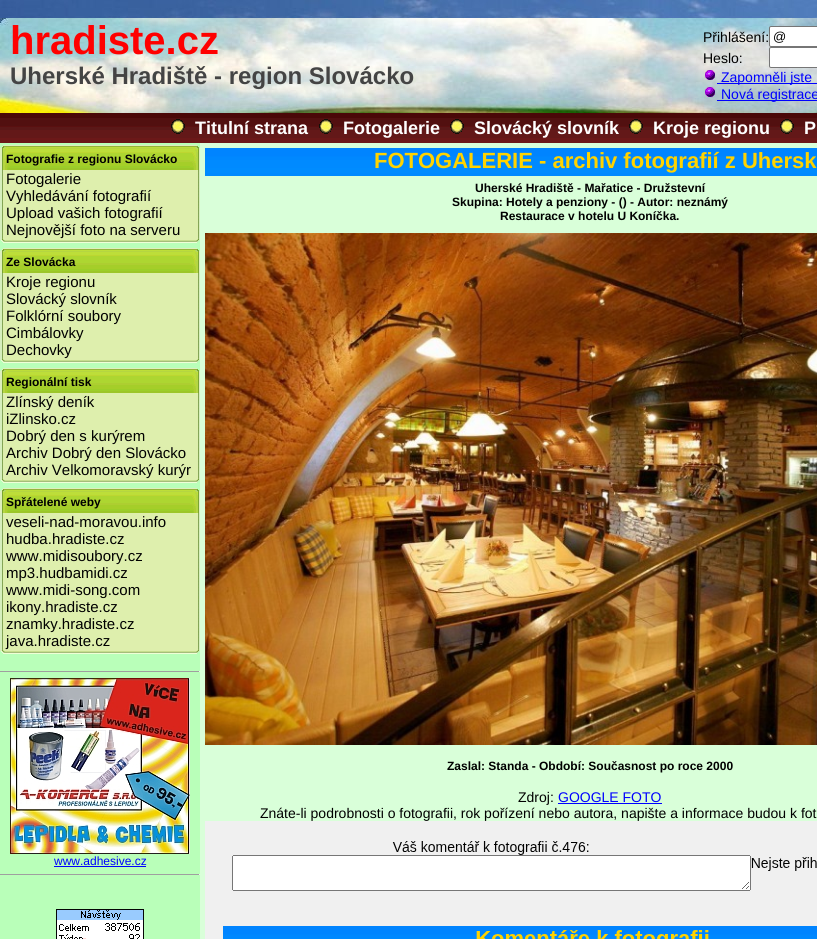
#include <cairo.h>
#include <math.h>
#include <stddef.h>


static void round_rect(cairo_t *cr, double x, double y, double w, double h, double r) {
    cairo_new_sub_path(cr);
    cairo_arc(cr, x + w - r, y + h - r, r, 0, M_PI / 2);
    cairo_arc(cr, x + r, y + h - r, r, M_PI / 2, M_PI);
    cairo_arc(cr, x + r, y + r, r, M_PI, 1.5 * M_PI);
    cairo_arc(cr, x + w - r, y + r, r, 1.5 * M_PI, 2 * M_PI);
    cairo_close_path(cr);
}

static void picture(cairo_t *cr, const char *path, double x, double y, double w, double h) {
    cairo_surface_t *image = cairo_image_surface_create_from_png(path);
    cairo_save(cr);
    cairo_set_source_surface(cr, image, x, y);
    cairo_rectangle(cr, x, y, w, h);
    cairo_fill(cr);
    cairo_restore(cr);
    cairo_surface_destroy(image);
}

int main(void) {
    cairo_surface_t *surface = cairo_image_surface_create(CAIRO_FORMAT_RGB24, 817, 939);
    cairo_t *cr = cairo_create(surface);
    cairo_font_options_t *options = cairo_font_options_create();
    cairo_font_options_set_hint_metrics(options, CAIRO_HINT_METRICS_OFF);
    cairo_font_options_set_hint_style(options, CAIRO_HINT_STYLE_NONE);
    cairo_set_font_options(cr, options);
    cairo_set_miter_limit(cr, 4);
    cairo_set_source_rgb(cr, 1, 1, 1);
    cairo_paint(cr);
    picture(cr, "img1.png", 0, 0, 817, 18);
    cairo_set_source_rgb(cr, 0.851, 1, 0.851);
    cairo_rectangle(cr, 200, 143, 617, 796);
    cairo_fill(cr);
    picture(cr, "img2.png", 0, 18, 817, 95);
    cairo_select_font_face(cr, "Liberation Sans", CAIRO_FONT_SLANT_NORMAL, CAIRO_FONT_WEIGHT_BOLD);
    cairo_set_font_size(cr, 40);
    cairo_set_source_rgb(cr, 1, 0, 0);
    cairo_move_to(cr, 10, 54);
    cairo_show_text(cr, "hradiste.cz");
    cairo_set_font_size(cr, 24);
    cairo_set_source_rgb(cr, 0.267, 0.267, 0.267);
    cairo_move_to(cr, 10, 84);
    cairo_show_text(cr, "Uherské Hradiště - region Slovácko");
    cairo_select_font_face(cr, "Liberation Sans", CAIRO_FONT_SLANT_NORMAL, CAIRO_FONT_WEIGHT_NORMAL);
    cairo_set_font_size(cr, 14);
    cairo_set_source_rgb(cr, 0, 0, 0);
    cairo_move_to(cr, 703, 42);
    cairo_show_text(cr, "Přihlášení:");
    cairo_set_source_rgb(cr, 1, 1, 1);
    round_rect(cr, 769.5, 26.5, 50, 20, 1.5);
    cairo_fill_preserve(cr);
    cairo_set_source_rgb(cr, 0.463, 0.463, 0.463);
    cairo_set_line_width(cr, 1);
    cairo_stroke(cr);
    cairo_set_font_size(cr, 13);
    cairo_set_source_rgb(cr, 0, 0, 0);
    cairo_move_to(cr, 773, 41);
    cairo_show_text(cr, "@");
    cairo_set_font_size(cr, 14);
    cairo_move_to(cr, 703, 63);
    cairo_show_text(cr, "Heslo:");
    cairo_set_source_rgb(cr, 1, 1, 1);
    round_rect(cr, 769.5, 47.5, 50, 20, 1.5);
    cairo_fill_preserve(cr);
    cairo_set_source_rgb(cr, 0.463, 0.463, 0.463);
    cairo_stroke(cr);
    picture(cr, "img3.png", 705, 70, 10, 10);
    cairo_set_source_rgb(cr, 0, 0, 1);
    cairo_rectangle(cr, 717, 83, 100, 1);
    cairo_fill(cr);
    cairo_move_to(cr, 721, 82);
    cairo_show_text(cr, "Zapomněli jste");
    picture(cr, "img4.png", 705, 87, 10, 10);
    cairo_rectangle(cr, 717, 100, 100, 1);
    cairo_fill(cr);
    cairo_move_to(cr, 721, 99);
    cairo_show_text(cr, "Nová registrace");
    picture(cr, "img5.png", 0, 113, 817, 30);
    picture(cr, "img6.png", 171, 119, 14, 15);
    cairo_select_font_face(cr, "Liberation Sans", CAIRO_FONT_SLANT_NORMAL, CAIRO_FONT_WEIGHT_BOLD);
    cairo_set_font_size(cr, 18);
    cairo_set_source_rgb(cr, 1, 1, 1);
    cairo_move_to(cr, 195, 134);
    cairo_show_text(cr, "Titulní strana");
    picture(cr, "img6.png", 319, 119, 14, 15);
    cairo_move_to(cr, 343, 134);
    cairo_show_text(cr, "Fotogalerie");
    picture(cr, "img6.png", 450, 119, 14, 15);
    cairo_move_to(cr, 474, 134);
    cairo_show_text(cr, "Slovácký slovník");
    picture(cr, "img6.png", 629, 119, 14, 15);
    cairo_move_to(cr, 653, 134);
    cairo_show_text(cr, "Kroje regionu");
    picture(cr, "img6.png", 780, 119, 14, 15);
    cairo_move_to(cr, 804, 134);
    cairo_show_text(cr, "P");
    cairo_set_source_rgb(cr, 0.725, 1, 0.725);
    cairo_rectangle(cr, 0, 143, 200, 796);
    cairo_fill(cr);
    picture(cr, "img7.png", 0, 145, 200, 25);
    cairo_set_font_size(cr, 12);
    cairo_set_source_rgb(cr, 0, 0, 0);
    cairo_move_to(cr, 6, 163);
    cairo_show_text(cr, "Fotografie z regionu Slovácko");
    picture(cr, "img8.png", 0, 170, 200, 68);
    cairo_select_font_face(cr, "Liberation Sans", CAIRO_FONT_SLANT_NORMAL, CAIRO_FONT_WEIGHT_NORMAL);
    cairo_set_font_size(cr, 15);
    cairo_move_to(cr, 6, 184);
    cairo_show_text(cr, "Fotogalerie");
    cairo_move_to(cr, 6, 201);
    cairo_show_text(cr, "Vyhledávání fotografií");
    cairo_move_to(cr, 6, 218);
    cairo_show_text(cr, "Upload vašich fotografií");
    picture(cr, "img9.png", 0, 238, 200, 5);
    cairo_move_to(cr, 6, 235);
    cairo_show_text(cr, "Nejnovější foto na serveru");
    picture(cr, "img7.png", 0, 248, 200, 25);
    cairo_select_font_face(cr, "Liberation Sans", CAIRO_FONT_SLANT_NORMAL, CAIRO_FONT_WEIGHT_BOLD);
    cairo_set_font_size(cr, 12);
    cairo_move_to(cr, 6, 266);
    cairo_show_text(cr, "Ze Slovácka");
    picture(cr, "img10.png", 0, 273, 200, 85);
    cairo_select_font_face(cr, "Liberation Sans", CAIRO_FONT_SLANT_NORMAL, CAIRO_FONT_WEIGHT_NORMAL);
    cairo_set_font_size(cr, 15);
    cairo_move_to(cr, 6, 287);
    cairo_show_text(cr, "Kroje regionu");
    cairo_move_to(cr, 6, 304);
    cairo_show_text(cr, "Slovácký slovník");
    cairo_move_to(cr, 6, 321);
    cairo_show_text(cr, "Folklórní soubory");
    cairo_move_to(cr, 6, 338);
    cairo_show_text(cr, "Cimbálovky");
    picture(cr, "img9.png", 0, 358, 200, 5);
    cairo_move_to(cr, 6, 355);
    cairo_show_text(cr, "Dechovky");
    picture(cr, "img7.png", 0, 368, 200, 25);
    cairo_select_font_face(cr, "Liberation Sans", CAIRO_FONT_SLANT_NORMAL, CAIRO_FONT_WEIGHT_BOLD);
    cairo_set_font_size(cr, 12);
    cairo_move_to(cr, 6, 386);
    cairo_show_text(cr, "Regionální tisk");
    picture(cr, "img10.png", 0, 393, 200, 85);
    cairo_select_font_face(cr, "Liberation Sans", CAIRO_FONT_SLANT_NORMAL, CAIRO_FONT_WEIGHT_NORMAL);
    cairo_set_font_size(cr, 15);
    cairo_move_to(cr, 6, 407);
    cairo_show_text(cr, "Zlínský deník");
    cairo_move_to(cr, 6, 424);
    cairo_show_text(cr, "iZlinsko.cz");
    cairo_move_to(cr, 6, 441);
    cairo_show_text(cr, "Dobrý den s kurýrem");
    cairo_move_to(cr, 6, 458);
    cairo_show_text(cr, "Archiv Dobrý den Slovácko");
    picture(cr, "img9.png", 0, 478, 200, 5);
    cairo_move_to(cr, 6, 475);
    cairo_show_text(cr, "Archiv Velkomoravský kurýr");
    picture(cr, "img7.png", 0, 488, 200, 25);
    cairo_select_font_face(cr, "Liberation Sans", CAIRO_FONT_SLANT_NORMAL, CAIRO_FONT_WEIGHT_BOLD);
    cairo_set_font_size(cr, 12);
    cairo_move_to(cr, 6, 506);
    cairo_show_text(cr, "Spřátelené weby");
    picture(cr, "img11.png", 0, 513, 200, 136);
    cairo_select_font_face(cr, "Liberation Sans", CAIRO_FONT_SLANT_NORMAL, CAIRO_FONT_WEIGHT_NORMAL);
    cairo_set_font_size(cr, 15);
    cairo_move_to(cr, 6, 527);
    cairo_show_text(cr, "veseli-nad-moravou.info");
    cairo_move_to(cr, 6, 544);
    cairo_show_text(cr, "hudba.hradiste.cz");
    cairo_move_to(cr, 6, 561);
    cairo_show_text(cr, "www.midisoubory.cz");
    cairo_move_to(cr, 6, 578);
    cairo_show_text(cr, "mp3.hudbamidi.cz");
    cairo_move_to(cr, 6, 595);
    cairo_show_text(cr, "www.midi-song.com");
    cairo_move_to(cr, 6, 612);
    cairo_show_text(cr, "ikony.hradiste.cz");
    cairo_move_to(cr, 6, 629);
    cairo_show_text(cr, "znamky.hradiste.cz");
    picture(cr, "img9.png", 0, 649, 200, 5);
    cairo_move_to(cr, 6, 646);
    cairo_show_text(cr, "java.hradiste.cz");
    cairo_set_source_rgb(cr, 0.624, 0.624, 0.624);
    cairo_rectangle(cr, 0, 671, 200, 1);
    cairo_fill(cr);
    cairo_set_source_rgb(cr, 0.933, 0.933, 0.933);
    cairo_rectangle(cr, 199, 671, 1, 1);
    cairo_fill(cr);
    picture(cr, "img12.png", 10, 678, 180, 176);
    cairo_set_font_size(cr, 12);
    cairo_set_source_rgb(cr, 0, 0, 1);
    cairo_move_to(cr, 54, 865);
    cairo_show_text(cr, "www.adhesive.cz");
    cairo_rectangle(cr, 54, 866, 92, 1);
    cairo_fill(cr);
    cairo_set_source_rgb(cr, 0.624, 0.624, 0.624);
    cairo_rectangle(cr, 0, 874, 200, 1);
    cairo_fill(cr);
    cairo_set_source_rgb(cr, 0.933, 0.933, 0.933);
    cairo_rectangle(cr, 199, 874, 1, 1);
    cairo_fill(cr);
    picture(cr, "img13.png", 56, 909, 88, 30);
    picture(cr, "img14.png", 205, 148, 612, 28);
    cairo_select_font_face(cr, "Liberation Sans", CAIRO_FONT_SLANT_NORMAL, CAIRO_FONT_WEIGHT_BOLD);
    cairo_set_font_size(cr, 22);
    cairo_set_source_rgb(cr, 1, 0.827, 0);
    cairo_move_to(cr, 374, 168);
    cairo_show_text(cr, "FOTOGALERIE - archiv fotografií z Uhersk");
    cairo_set_font_size(cr, 12);
    cairo_set_source_rgb(cr, 0, 0, 0);
    cairo_move_to(cr, 475, 192);
    cairo_show_text(cr, "Uherské Hradiště - Mařatice - Družstevní");
    cairo_move_to(cr, 452, 206);
    cairo_show_text(cr, "Skupina: Hotely a penziony - () - Autor: neznámý");
    cairo_move_to(cr, 500, 220);
    cairo_show_text(cr, "Restaurace v hotelu U Koníčka.");
    picture(cr, "img15.png", 205, 233, 612, 512);
    cairo_move_to(cr, 447, 770);
    cairo_show_text(cr, "Zaslal: Standa - Období: Současnost po roce 2000");
    cairo_select_font_face(cr, "Liberation Sans", CAIRO_FONT_SLANT_NORMAL, CAIRO_FONT_WEIGHT_NORMAL);
    cairo_set_font_size(cr, 14);
    cairo_move_to(cr, 518, 802);
    cairo_show_text(cr, "Zdroj:");
    cairo_set_source_rgb(cr, 0, 0, 1);
    cairo_move_to(cr, 558, 802);
    cairo_show_text(cr, "GOOGLE FOTO");
    cairo_rectangle(cr, 558, 803, 104, 1);
    cairo_fill(cr);
    cairo_set_source_rgb(cr, 0, 0, 0);
    cairo_move_to(cr, 260, 818);
    cairo_show_text(cr, "Znáte-li podrobnosti o fotografii, rok pořízení nebo autora, napište a informace budou k fot");
    picture(cr, "img16.png", 205, 821, 612, 80);
    picture(cr, "img17.png", 205, 901, 612, 38);
    cairo_surface_write_to_png(surface, "page.png");
    cairo_font_options_destroy(options);
    cairo_destroy(cr);
    cairo_surface_destroy(surface);
    return 0;
}
